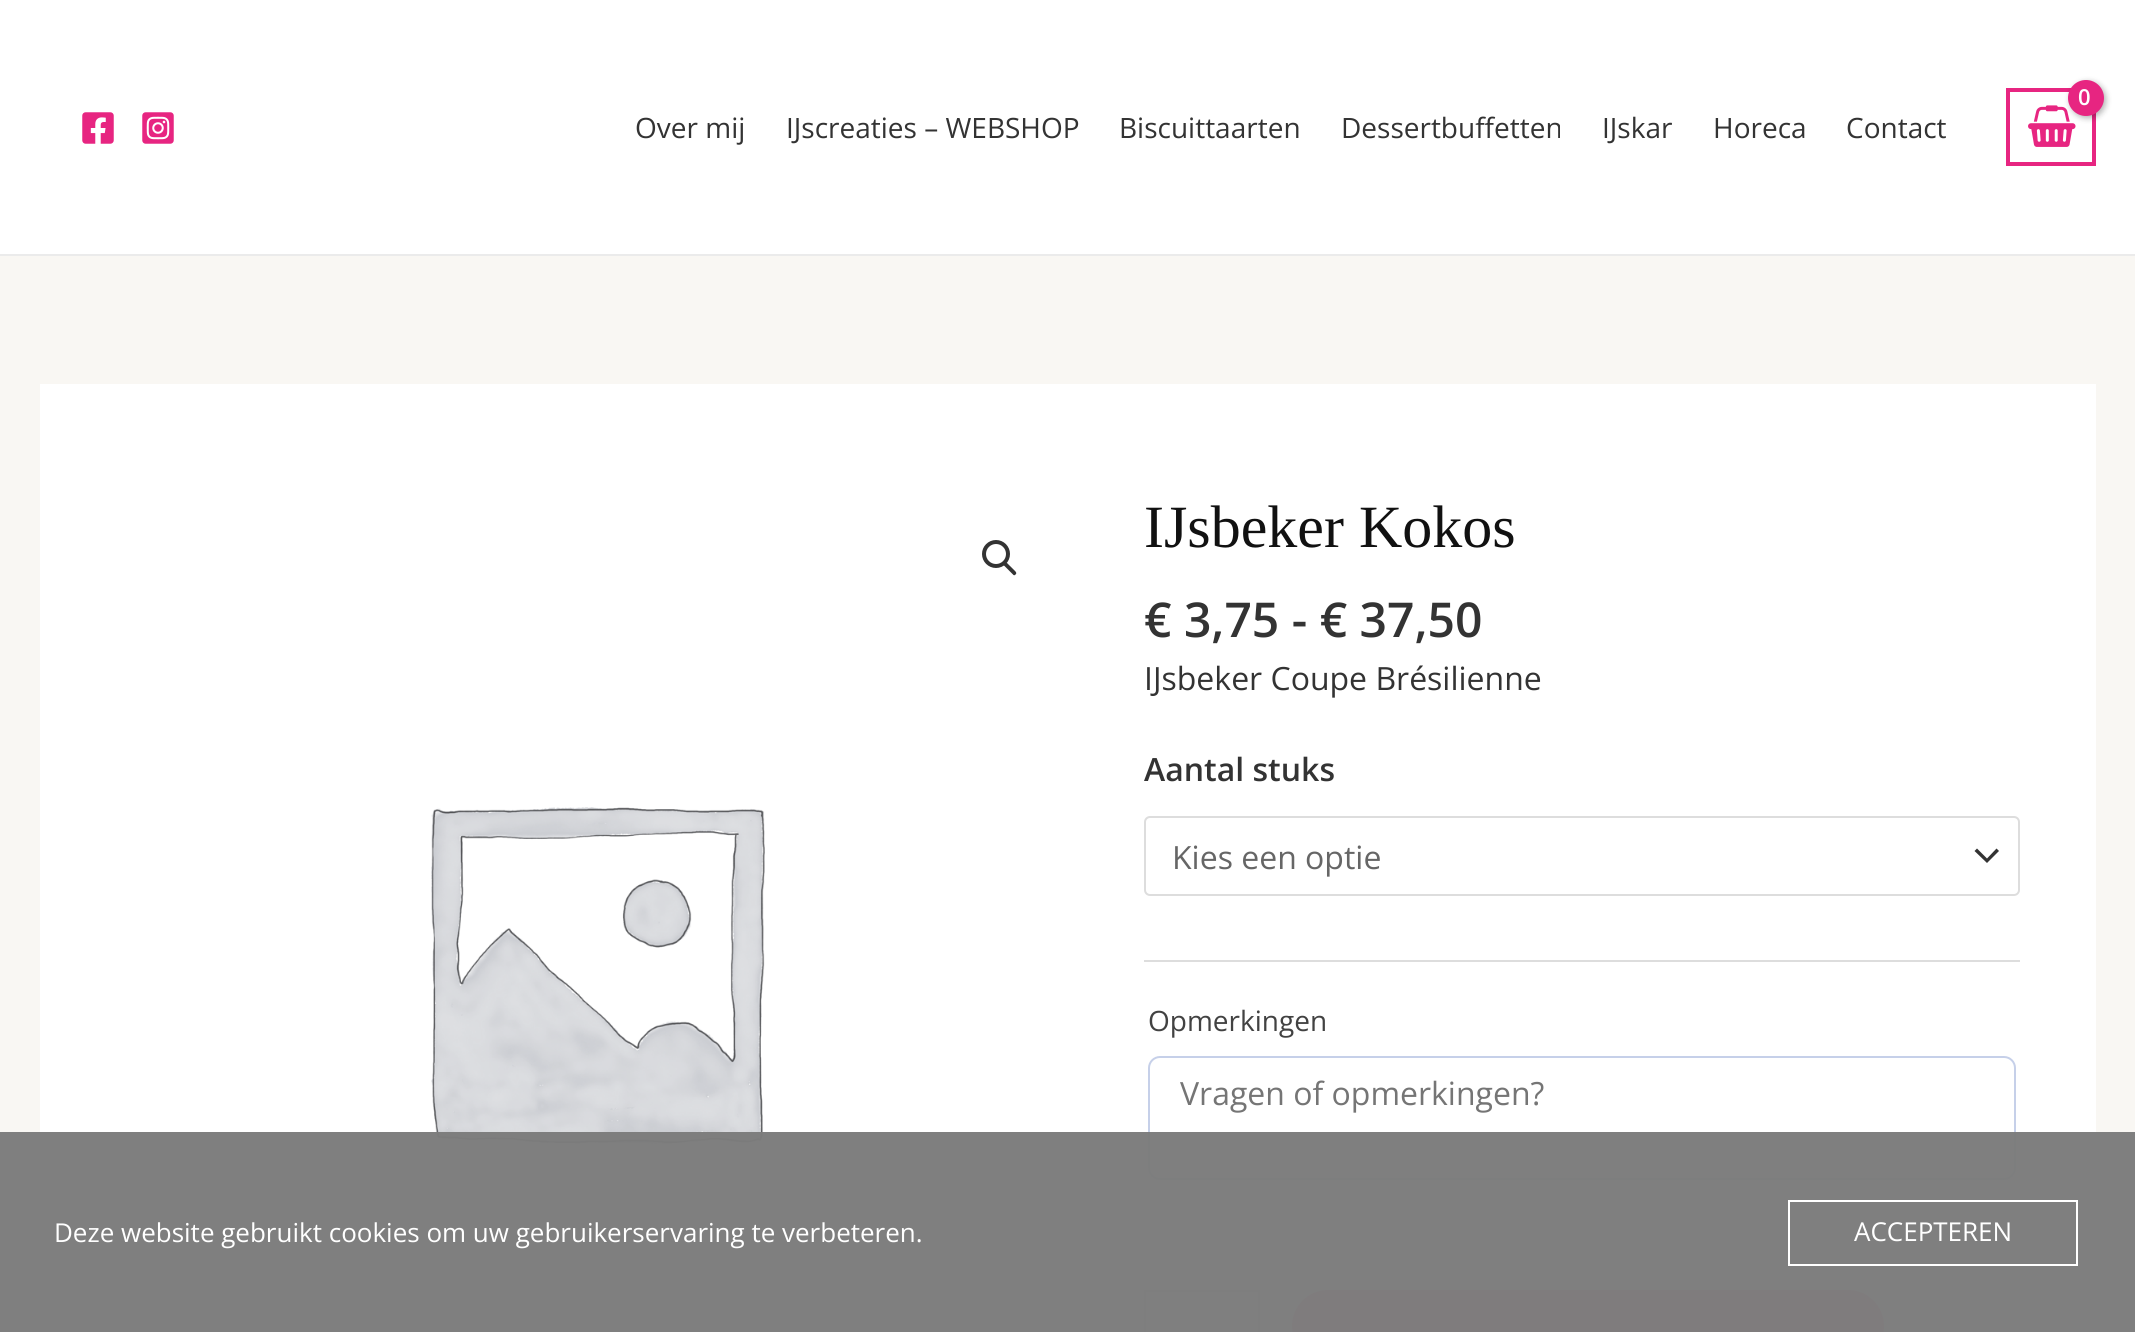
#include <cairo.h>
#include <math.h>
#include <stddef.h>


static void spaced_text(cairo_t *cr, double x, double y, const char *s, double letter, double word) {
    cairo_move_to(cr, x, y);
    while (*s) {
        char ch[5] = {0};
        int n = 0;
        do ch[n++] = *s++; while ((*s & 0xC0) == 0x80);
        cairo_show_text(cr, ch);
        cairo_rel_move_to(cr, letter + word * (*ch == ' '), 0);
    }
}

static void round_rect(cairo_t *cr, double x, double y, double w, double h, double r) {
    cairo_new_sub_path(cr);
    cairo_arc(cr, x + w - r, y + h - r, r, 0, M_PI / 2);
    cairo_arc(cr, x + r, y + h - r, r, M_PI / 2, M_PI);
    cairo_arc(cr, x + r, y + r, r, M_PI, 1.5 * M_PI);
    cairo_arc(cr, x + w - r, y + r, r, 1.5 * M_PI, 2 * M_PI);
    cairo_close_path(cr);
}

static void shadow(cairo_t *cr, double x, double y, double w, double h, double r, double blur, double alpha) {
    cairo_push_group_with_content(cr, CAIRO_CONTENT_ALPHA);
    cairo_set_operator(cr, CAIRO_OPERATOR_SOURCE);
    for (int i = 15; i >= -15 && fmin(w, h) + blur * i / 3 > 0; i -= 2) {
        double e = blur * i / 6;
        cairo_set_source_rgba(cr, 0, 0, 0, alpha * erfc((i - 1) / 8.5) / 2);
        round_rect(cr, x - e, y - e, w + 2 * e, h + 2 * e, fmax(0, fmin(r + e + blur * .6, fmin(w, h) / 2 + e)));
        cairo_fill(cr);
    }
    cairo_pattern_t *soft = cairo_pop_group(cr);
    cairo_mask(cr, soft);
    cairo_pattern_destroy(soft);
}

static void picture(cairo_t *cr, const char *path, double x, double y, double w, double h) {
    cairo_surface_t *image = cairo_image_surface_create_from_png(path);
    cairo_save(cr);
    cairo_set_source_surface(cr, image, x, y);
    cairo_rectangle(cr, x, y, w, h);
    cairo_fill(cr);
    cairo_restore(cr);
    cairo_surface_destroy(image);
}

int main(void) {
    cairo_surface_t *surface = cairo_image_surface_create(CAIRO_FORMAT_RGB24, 2135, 1332);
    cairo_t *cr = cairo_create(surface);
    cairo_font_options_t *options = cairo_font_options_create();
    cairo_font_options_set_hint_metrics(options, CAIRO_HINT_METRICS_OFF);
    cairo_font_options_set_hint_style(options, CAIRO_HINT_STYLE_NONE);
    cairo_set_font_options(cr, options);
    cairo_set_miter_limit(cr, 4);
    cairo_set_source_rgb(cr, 0.973, 0.965, 0.953);
    cairo_paint(cr);
    cairo_set_source_rgb(cr, 1, 1, 1);
    cairo_rectangle(cr, 0, 0, 2135, 254);
    cairo_fill(cr);
    cairo_set_source_rgb(cr, 0.918, 0.918, 0.918);
    cairo_rectangle(cr, 0, 254, 2135, 2);
    cairo_fill(cr);
    picture(cr, "img1.png", 82, 112, 32, 32);
    picture(cr, "img2.png", 142, 112, 32, 32);
    cairo_rectangle(cr, 2008, 90, 86, 74);
    cairo_set_source_rgb(cr, 0.906, 0.145, 0.506);
    cairo_set_line_width(cr, 4);
    cairo_stroke(cr);
    picture(cr, "img3.png", 2028, 105, 48, 42);
    cairo_set_source_rgb(cr, 0, 0, 0);
    shadow(cr, 2070, 82, 36, 36, 18, 3, 0.3);
    cairo_set_source_rgb(cr, 0.906, 0.145, 0.506);
    cairo_arc(cr, 2086, 98, 18, 0, 2 * M_PI);
    cairo_fill(cr);
    cairo_select_font_face(cr, "Open Sans SemiBold", CAIRO_FONT_SLANT_NORMAL, CAIRO_FONT_WEIGHT_NORMAL);
    cairo_set_font_size(cr, 22);
    cairo_set_source_rgb(cr, 1, 1, 1);
    spaced_text(cr, 2078, 105, "0", -1, 0);
    cairo_select_font_face(cr, "Open Sans", CAIRO_FONT_SLANT_NORMAL, CAIRO_FONT_WEIGHT_NORMAL);
    cairo_set_font_size(cr, 28);
    cairo_set_source_rgb(cr, 0.2, 0.2, 0.2);
    cairo_move_to(cr, 635, 138);
    cairo_show_text(cr, "Over mij");
    cairo_move_to(cr, 786, 138);
    cairo_show_text(cr, "IJscreaties – WEBSHOP");
    cairo_move_to(cr, 1119, 138);
    cairo_show_text(cr, "Biscuittaarten");
    cairo_move_to(cr, 1341, 138);
    cairo_show_text(cr, "Dessertbuffetten");
    cairo_move_to(cr, 1602, 138);
    cairo_show_text(cr, "IJskar");
    cairo_move_to(cr, 1713, 138);
    cairo_show_text(cr, "Horeca");
    cairo_move_to(cr, 1846, 138);
    cairo_show_text(cr, "Contact");
    cairo_set_source_rgb(cr, 1, 1, 1);
    cairo_rectangle(cr, 40, 384, 2056, 948);
    cairo_fill(cr);
    cairo_arc(cr, 996, 554, 12, 0, 2 * M_PI);
    cairo_set_source_rgb(cr, 0.2, 0.2, 0.2);
    cairo_stroke(cr);
    cairo_new_path(cr);
    cairo_move_to(cr, 1004.5, 563);
    cairo_curve_to(cr, 1005, 562.5, 1006.5, 562.5, 1007, 563);
    cairo_line_to(cr, 1015.5, 571.5);
    cairo_curve_to(cr, 1016.5, 572.5, 1016.5, 574, 1015.5, 574.5);
    cairo_curve_to(cr, 1015, 575.5, 1013.5, 575.5, 1013, 574.5);
    cairo_line_to(cr, 1004.5, 566);
    cairo_curve_to(cr, 1003.5, 565.5, 1003.5, 564, 1004.5, 563);
    cairo_close_path(cr);
    cairo_fill(cr);
    picture(cr, "img4.png", 431, 807, 334, 338);
    cairo_select_font_face(cr, "Liberation Serif", CAIRO_FONT_SLANT_NORMAL, CAIRO_FONT_WEIGHT_NORMAL);
    cairo_set_font_size(cr, 60);
    cairo_set_source_rgb(cr, 0.067, 0.067, 0.067);
    cairo_move_to(cr, 1144, 547);
    cairo_show_text(cr, "IJsbeker Kokos");
    cairo_select_font_face(cr, "Open Sans SemiBold", CAIRO_FONT_SLANT_NORMAL, CAIRO_FONT_WEIGHT_NORMAL);
    cairo_set_font_size(cr, 48);
    cairo_set_source_rgb(cr, 0.2, 0.2, 0.2);
    cairo_move_to(cr, 1144, 637);
    cairo_show_text(cr, "€ 3,75 - € 37,50");
    cairo_select_font_face(cr, "Open Sans", CAIRO_FONT_SLANT_NORMAL, CAIRO_FONT_WEIGHT_NORMAL);
    cairo_set_font_size(cr, 32);
    cairo_move_to(cr, 1144, 690);
    cairo_show_text(cr, "IJsbeker Coupe Brésilienne");
    cairo_set_source_rgb(cr, 0.867, 0.867, 0.867);
    cairo_rectangle(cr, 1144, 960, 876, 2);
    cairo_fill(cr);
    cairo_select_font_face(cr, "Open Sans SemiBold", CAIRO_FONT_SLANT_NORMAL, CAIRO_FONT_WEIGHT_NORMAL);
    cairo_set_source_rgb(cr, 0.2, 0.2, 0.2);
    cairo_move_to(cr, 1144, 781);
    cairo_show_text(cr, "Aantal stuks");
    cairo_new_path(cr);
    cairo_move_to(cr, 1974.5, 851);
    cairo_line_to(cr, 1987, 863);
    cairo_line_to(cr, 1999, 851);
    cairo_line_to(cr, 1996.5, 848.5);
    cairo_line_to(cr, 1987, 858.5);
    cairo_line_to(cr, 1977, 848.5);
    cairo_close_path(cr);
    cairo_fill(cr);
    round_rect(cr, 1145, 817, 874, 78, 5);
    cairo_set_source_rgb(cr, 0.867, 0.867, 0.867);
    cairo_set_line_width(cr, 2);
    cairo_stroke(cr);
    cairo_select_font_face(cr, "Open Sans", CAIRO_FONT_SLANT_NORMAL, CAIRO_FONT_WEIGHT_NORMAL);
    cairo_set_source_rgb(cr, 0.4, 0.4, 0.4);
    cairo_move_to(cr, 1172, 869);
    cairo_show_text(cr, "Kies een optie");
    cairo_set_font_size(cr, 28);
    cairo_set_source_rgb(cr, 0.259, 0.259, 0.259);
    cairo_move_to(cr, 1148, 1031);
    cairo_show_text(cr, "Opmerkingen");
    round_rect(cr, 1149, 1057, 866, 122, 11);
    cairo_set_source_rgb(cr, 0.776, 0.816, 0.914);
    cairo_stroke(cr);
    cairo_set_font_size(cr, 32);
    cairo_set_source_rgb(cr, 0.459, 0.459, 0.459);
    cairo_move_to(cr, 1180, 1105);
    cairo_show_text(cr, "Vragen of opmerkingen?");
    cairo_rectangle(cr, 1145, 1291, 114, 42);
    cairo_set_source_rgb(cr, 0.867, 0.867, 0.867);
    cairo_stroke(cr);
    cairo_set_source_rgb(cr, 0.953, 0.573, 0.753);
    round_rect(cr, 1292, 1290, 592, 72, 36);
    cairo_fill(cr);
    cairo_set_source_rgba(cr, 0.486, 0.486, 0.486, 0.97);
    cairo_rectangle(cr, 0, 1132, 2135, 200);
    cairo_fill(cr);
    cairo_set_font_size(cr, 26);
    cairo_set_source_rgb(cr, 1, 1, 1);
    cairo_move_to(cr, 54, 1242);
    cairo_show_text(cr, "Deze website gebruikt cookies om uw gebruikerservaring te verbeteren.");
    cairo_rectangle(cr, 1789, 1201, 288, 64);
    cairo_stroke(cr);
    cairo_move_to(cr, 1854, 1241);
    cairo_show_text(cr, "ACCEPTEREN");
    cairo_surface_write_to_png(surface, "page.png");
    cairo_font_options_destroy(options);
    cairo_destroy(cr);
    cairo_surface_destroy(surface);
    return 0;
}
